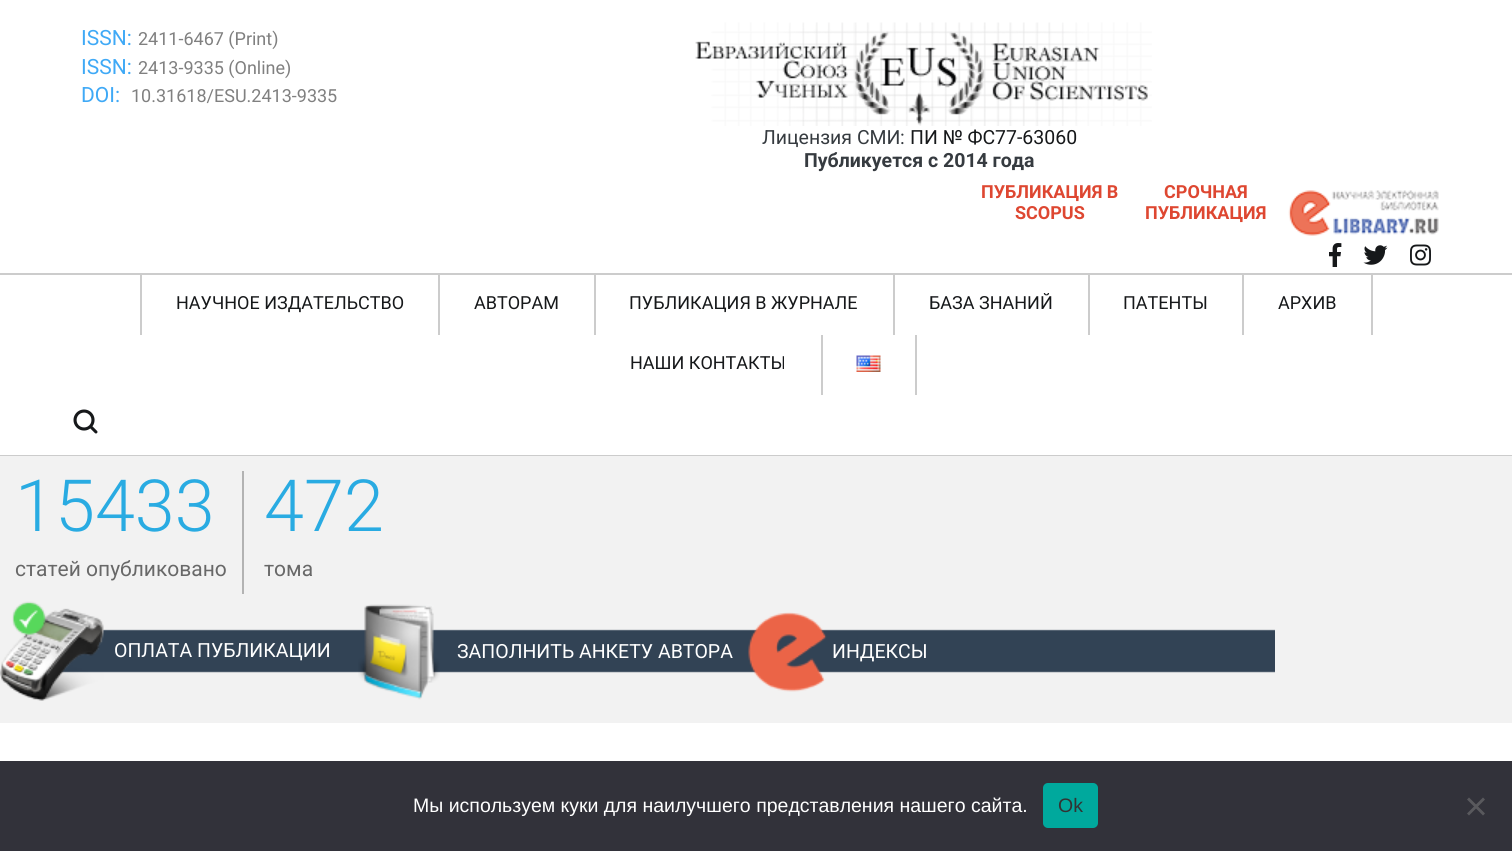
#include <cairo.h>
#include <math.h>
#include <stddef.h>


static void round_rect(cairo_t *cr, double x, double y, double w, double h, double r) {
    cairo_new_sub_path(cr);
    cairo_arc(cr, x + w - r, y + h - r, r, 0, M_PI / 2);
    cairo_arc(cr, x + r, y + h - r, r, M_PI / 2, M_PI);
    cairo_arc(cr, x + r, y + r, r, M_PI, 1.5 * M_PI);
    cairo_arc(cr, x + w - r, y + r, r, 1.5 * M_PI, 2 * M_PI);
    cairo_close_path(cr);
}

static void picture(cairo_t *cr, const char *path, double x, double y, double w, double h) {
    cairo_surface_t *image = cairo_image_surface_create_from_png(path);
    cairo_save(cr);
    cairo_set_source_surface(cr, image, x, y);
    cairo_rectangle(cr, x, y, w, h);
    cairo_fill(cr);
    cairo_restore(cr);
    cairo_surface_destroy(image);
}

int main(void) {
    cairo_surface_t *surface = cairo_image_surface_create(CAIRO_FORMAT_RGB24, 1512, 851);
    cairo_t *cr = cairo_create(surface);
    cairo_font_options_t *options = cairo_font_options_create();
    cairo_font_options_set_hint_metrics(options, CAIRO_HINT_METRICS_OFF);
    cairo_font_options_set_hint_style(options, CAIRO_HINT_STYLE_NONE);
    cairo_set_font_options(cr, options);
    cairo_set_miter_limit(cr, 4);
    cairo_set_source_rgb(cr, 1, 1, 1);
    cairo_paint(cr);
    cairo_select_font_face(cr, "Roboto", CAIRO_FONT_SLANT_NORMAL, CAIRO_FONT_WEIGHT_NORMAL);
    cairo_set_font_size(cr, 21);
    cairo_set_source_rgb(cr, 0.247, 0.663, 0.961);
    cairo_move_to(cr, 81, 45);
    cairo_show_text(cr, "ISSN:");
    cairo_set_font_size(cr, 18);
    cairo_set_source_rgb(cr, 0.502, 0.502, 0.502);
    cairo_move_to(cr, 138, 45);
    cairo_show_text(cr, "2411-6467 (Print)");
    cairo_set_font_size(cr, 21);
    cairo_set_source_rgb(cr, 0.247, 0.663, 0.961);
    cairo_move_to(cr, 81, 74);
    cairo_show_text(cr, "ISSN:");
    cairo_set_font_size(cr, 18);
    cairo_set_source_rgb(cr, 0.502, 0.502, 0.502);
    cairo_move_to(cr, 138, 74);
    cairo_show_text(cr, "2413-9335 (Online)");
    cairo_set_font_size(cr, 21);
    cairo_set_source_rgb(cr, 0.247, 0.663, 0.961);
    cairo_move_to(cr, 81, 102);
    cairo_show_text(cr, "DOI:");
    cairo_set_font_size(cr, 18);
    cairo_set_source_rgb(cr, 0.502, 0.502, 0.502);
    cairo_move_to(cr, 131, 102);
    cairo_show_text(cr, "10.31618/ESU.2413-9335");
    picture(cr, "img1.png", 695, 22, 457, 104);
    cairo_select_font_face(cr, "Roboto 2", CAIRO_FONT_SLANT_NORMAL, CAIRO_FONT_WEIGHT_NORMAL);
    cairo_set_font_size(cr, 19.5);
    cairo_set_source_rgb(cr, 0.212, 0.231, 0.251);
    cairo_move_to(cr, 762, 144);
    cairo_show_text(cr, "Лицензия СМИ");
    cairo_select_font_face(cr, "Roboto", CAIRO_FONT_SLANT_NORMAL, CAIRO_FONT_WEIGHT_NORMAL);
    cairo_move_to(cr, 900, 144);
    cairo_show_text(cr, ":");
    cairo_select_font_face(cr, "Roboto 2", CAIRO_FONT_SLANT_NORMAL, CAIRO_FONT_WEIGHT_NORMAL);
    cairo_set_source_rgb(cr, 0.086, 0.094, 0.102);
    cairo_move_to(cr, 910, 144);
    cairo_show_text(cr, "ПИ № ФС");
    cairo_select_font_face(cr, "Roboto", CAIRO_FONT_SLANT_NORMAL, CAIRO_FONT_WEIGHT_NORMAL);
    cairo_move_to(cr, 995, 144);
    cairo_show_text(cr, "77-63060");
    cairo_select_font_face(cr, "Roboto", CAIRO_FONT_SLANT_NORMAL, CAIRO_FONT_WEIGHT_BOLD);
    cairo_set_source_rgb(cr, 0.212, 0.231, 0.251);
    cairo_move_to(cr, 804, 167);
    cairo_show_text(cr, "Публикуется с 2014 года");
    cairo_set_font_size(cr, 18);
    cairo_set_source_rgb(cr, 0.871, 0.278, 0.192);
    cairo_move_to(cr, 981, 198);
    cairo_show_text(cr, "ПУБЛИКАЦИЯ В");
    cairo_move_to(cr, 1015, 219);
    cairo_show_text(cr, "SCOPUS");
    cairo_move_to(cr, 1164, 198);
    cairo_show_text(cr, "СРОЧНАЯ");
    cairo_move_to(cr, 1145, 219);
    cairo_show_text(cr, "ПУБЛИКАЦИЯ");
    picture(cr, "img2.png", 1288, 190, 151, 46);
    picture(cr, "img3.png", 1329, 243, 13, 24);
    picture(cr, "img4.png", 1363, 245, 25, 20);
    picture(cr, "img5.png", 1410, 244, 21, 22);
    cairo_set_source_rgb(cr, 0.8, 0.8, 0.8);
    cairo_rectangle(cr, 0, 273, 1512, 2);
    cairo_fill(cr);
    cairo_rectangle(cr, 0, 455, 1512, 1);
    cairo_fill(cr);
    cairo_rectangle(cr, 438, 275, 2, 60);
    cairo_fill(cr);
    cairo_rectangle(cr, 140, 275, 2, 60);
    cairo_fill(cr);
    cairo_select_font_face(cr, "Roboto 2", CAIRO_FONT_SLANT_NORMAL, CAIRO_FONT_WEIGHT_NORMAL);
    cairo_set_source_rgb(cr, 0.086, 0.094, 0.102);
    cairo_move_to(cr, 176, 309);
    cairo_show_text(cr, "НАУЧНОЕ ИЗДАТЕЛЬСТВО");
    cairo_set_source_rgb(cr, 0.8, 0.8, 0.8);
    cairo_rectangle(cr, 594, 275, 2, 60);
    cairo_fill(cr);
    cairo_set_source_rgb(cr, 0.086, 0.094, 0.102);
    cairo_move_to(cr, 474, 309);
    cairo_show_text(cr, "АВТОРАМ");
    cairo_set_source_rgb(cr, 0.8, 0.8, 0.8);
    cairo_rectangle(cr, 893, 275, 2, 60);
    cairo_fill(cr);
    cairo_set_source_rgb(cr, 0.086, 0.094, 0.102);
    cairo_move_to(cr, 629, 309);
    cairo_show_text(cr, "ПУБЛИКАЦИЯ В ЖУРНАЛЕ");
    cairo_set_source_rgb(cr, 0.8, 0.8, 0.8);
    cairo_rectangle(cr, 1088, 275, 2, 60);
    cairo_fill(cr);
    cairo_set_source_rgb(cr, 0.086, 0.094, 0.102);
    cairo_move_to(cr, 929, 309);
    cairo_show_text(cr, "БАЗА ЗНАНИЙ");
    cairo_set_source_rgb(cr, 0.8, 0.8, 0.8);
    cairo_rectangle(cr, 1242, 275, 2, 60);
    cairo_fill(cr);
    cairo_set_source_rgb(cr, 0.086, 0.094, 0.102);
    cairo_move_to(cr, 1123, 309);
    cairo_show_text(cr, "ПАТЕНТЫ");
    cairo_set_source_rgb(cr, 0.8, 0.8, 0.8);
    cairo_rectangle(cr, 1371, 275, 2, 60);
    cairo_fill(cr);
    cairo_set_source_rgb(cr, 0.086, 0.094, 0.102);
    cairo_move_to(cr, 1278, 309);
    cairo_show_text(cr, "АРХИВ");
    cairo_set_source_rgb(cr, 0.8, 0.8, 0.8);
    cairo_rectangle(cr, 821, 335, 2, 60);
    cairo_fill(cr);
    cairo_set_source_rgb(cr, 0.086, 0.094, 0.102);
    cairo_move_to(cr, 630, 369);
    cairo_show_text(cr, "НАШИ КОНТАКТЫ");
    cairo_set_source_rgb(cr, 0.8, 0.8, 0.8);
    cairo_rectangle(cr, 915, 335, 2, 60);
    cairo_fill(cr);
    picture(cr, "img6.png", 856, 355, 25, 17);
    picture(cr, "img7.png", 73, 409, 25, 25);
    cairo_set_source_rgb(cr, 0.949, 0.949, 0.949);
    cairo_rectangle(cr, 0, 456, 1512, 267);
    cairo_fill(cr);
    cairo_set_source_rgb(cr, 0.702, 0.702, 0.702);
    cairo_rectangle(cr, 242, 471, 2, 123);
    cairo_fill(cr);
    cairo_select_font_face(cr, "Roboto Light", CAIRO_FONT_SLANT_NORMAL, CAIRO_FONT_WEIGHT_NORMAL);
    cairo_set_font_size(cr, 72);
    cairo_set_source_rgb(cr, 0.161, 0.671, 0.886);
    cairo_move_to(cr, 15, 531);
    cairo_show_text(cr, "15433");
    cairo_select_font_face(cr, "Roboto 2", CAIRO_FONT_SLANT_NORMAL, CAIRO_FONT_WEIGHT_NORMAL);
    cairo_set_font_size(cr, 21);
    cairo_set_source_rgb(cr, 0.408, 0.408, 0.408);
    cairo_move_to(cr, 15, 576);
    cairo_show_text(cr, "статей опубликовано");
    cairo_select_font_face(cr, "Roboto Light", CAIRO_FONT_SLANT_NORMAL, CAIRO_FONT_WEIGHT_NORMAL);
    cairo_set_font_size(cr, 72);
    cairo_set_source_rgb(cr, 0.161, 0.671, 0.886);
    cairo_move_to(cr, 264, 531);
    cairo_show_text(cr, "472");
    cairo_select_font_face(cr, "Roboto 2", CAIRO_FONT_SLANT_NORMAL, CAIRO_FONT_WEIGHT_NORMAL);
    cairo_set_font_size(cr, 21);
    cairo_set_source_rgb(cr, 0.408, 0.408, 0.408);
    cairo_move_to(cr, 264, 576);
    cairo_show_text(cr, "тома");
    picture(cr, "img8.png", 59, 629, 1216, 44);
    picture(cr, "img9.png", 0, 601, 104, 100);
    cairo_set_font_size(cr, 19.5);
    cairo_set_source_rgb(cr, 1, 1, 1);
    cairo_move_to(cr, 114, 657);
    cairo_show_text(cr, "ОПЛАТА ПУБЛИКАЦИИ");
    picture(cr, "img10.png", 358, 604, 82, 96);
    cairo_move_to(cr, 457, 658);
    cairo_show_text(cr, "ЗАПОЛНИТЬ АНКЕТУ АВТОРА");
    picture(cr, "img11.png", 748, 612, 79, 80);
    cairo_move_to(cr, 832, 658);
    cairo_show_text(cr, "ИНДЕКСЫ");
    cairo_set_source_rgb(cr, 0.196, 0.196, 0.227);
    cairo_rectangle(cr, 0, 761, 1512, 90);
    cairo_fill(cr);
    cairo_select_font_face(cr, "Liberation Sans", CAIRO_FONT_SLANT_NORMAL, CAIRO_FONT_WEIGHT_NORMAL);
    cairo_set_source_rgb(cr, 1, 1, 1);
    cairo_move_to(cr, 413, 812);
    cairo_show_text(cr, "Мы используем куки для наилучшего представления нашего сайта.");
    cairo_set_source_rgb(cr, 0, 0.663, 0.616);
    round_rect(cr, 1043, 783, 55, 45, 5);
    cairo_fill(cr);
    cairo_set_source_rgb(cr, 0.2, 0.2, 0.2);
    cairo_move_to(cr, 1058, 812);
    cairo_show_text(cr, "Ok");
    cairo_set_source_rgb(cr, 0.349, 0.349, 0.365);
    cairo_new_path(cr);
    cairo_move_to(cr, 1483, 797.5);
    cairo_line_to(cr, 1485, 799.5);
    cairo_line_to(cr, 1469, 815.5);
    cairo_line_to(cr, 1467, 813.5);
    cairo_close_path(cr);
    cairo_fill(cr);
    cairo_new_path(cr);
    cairo_move_to(cr, 1467, 799.5);
    cairo_line_to(cr, 1469, 797.5);
    cairo_line_to(cr, 1485, 813.5);
    cairo_line_to(cr, 1483, 815.5);
    cairo_close_path(cr);
    cairo_fill(cr);
    cairo_surface_write_to_png(surface, "page.png");
    cairo_font_options_destroy(options);
    cairo_destroy(cr);
    cairo_surface_destroy(surface);
    return 0;
}
